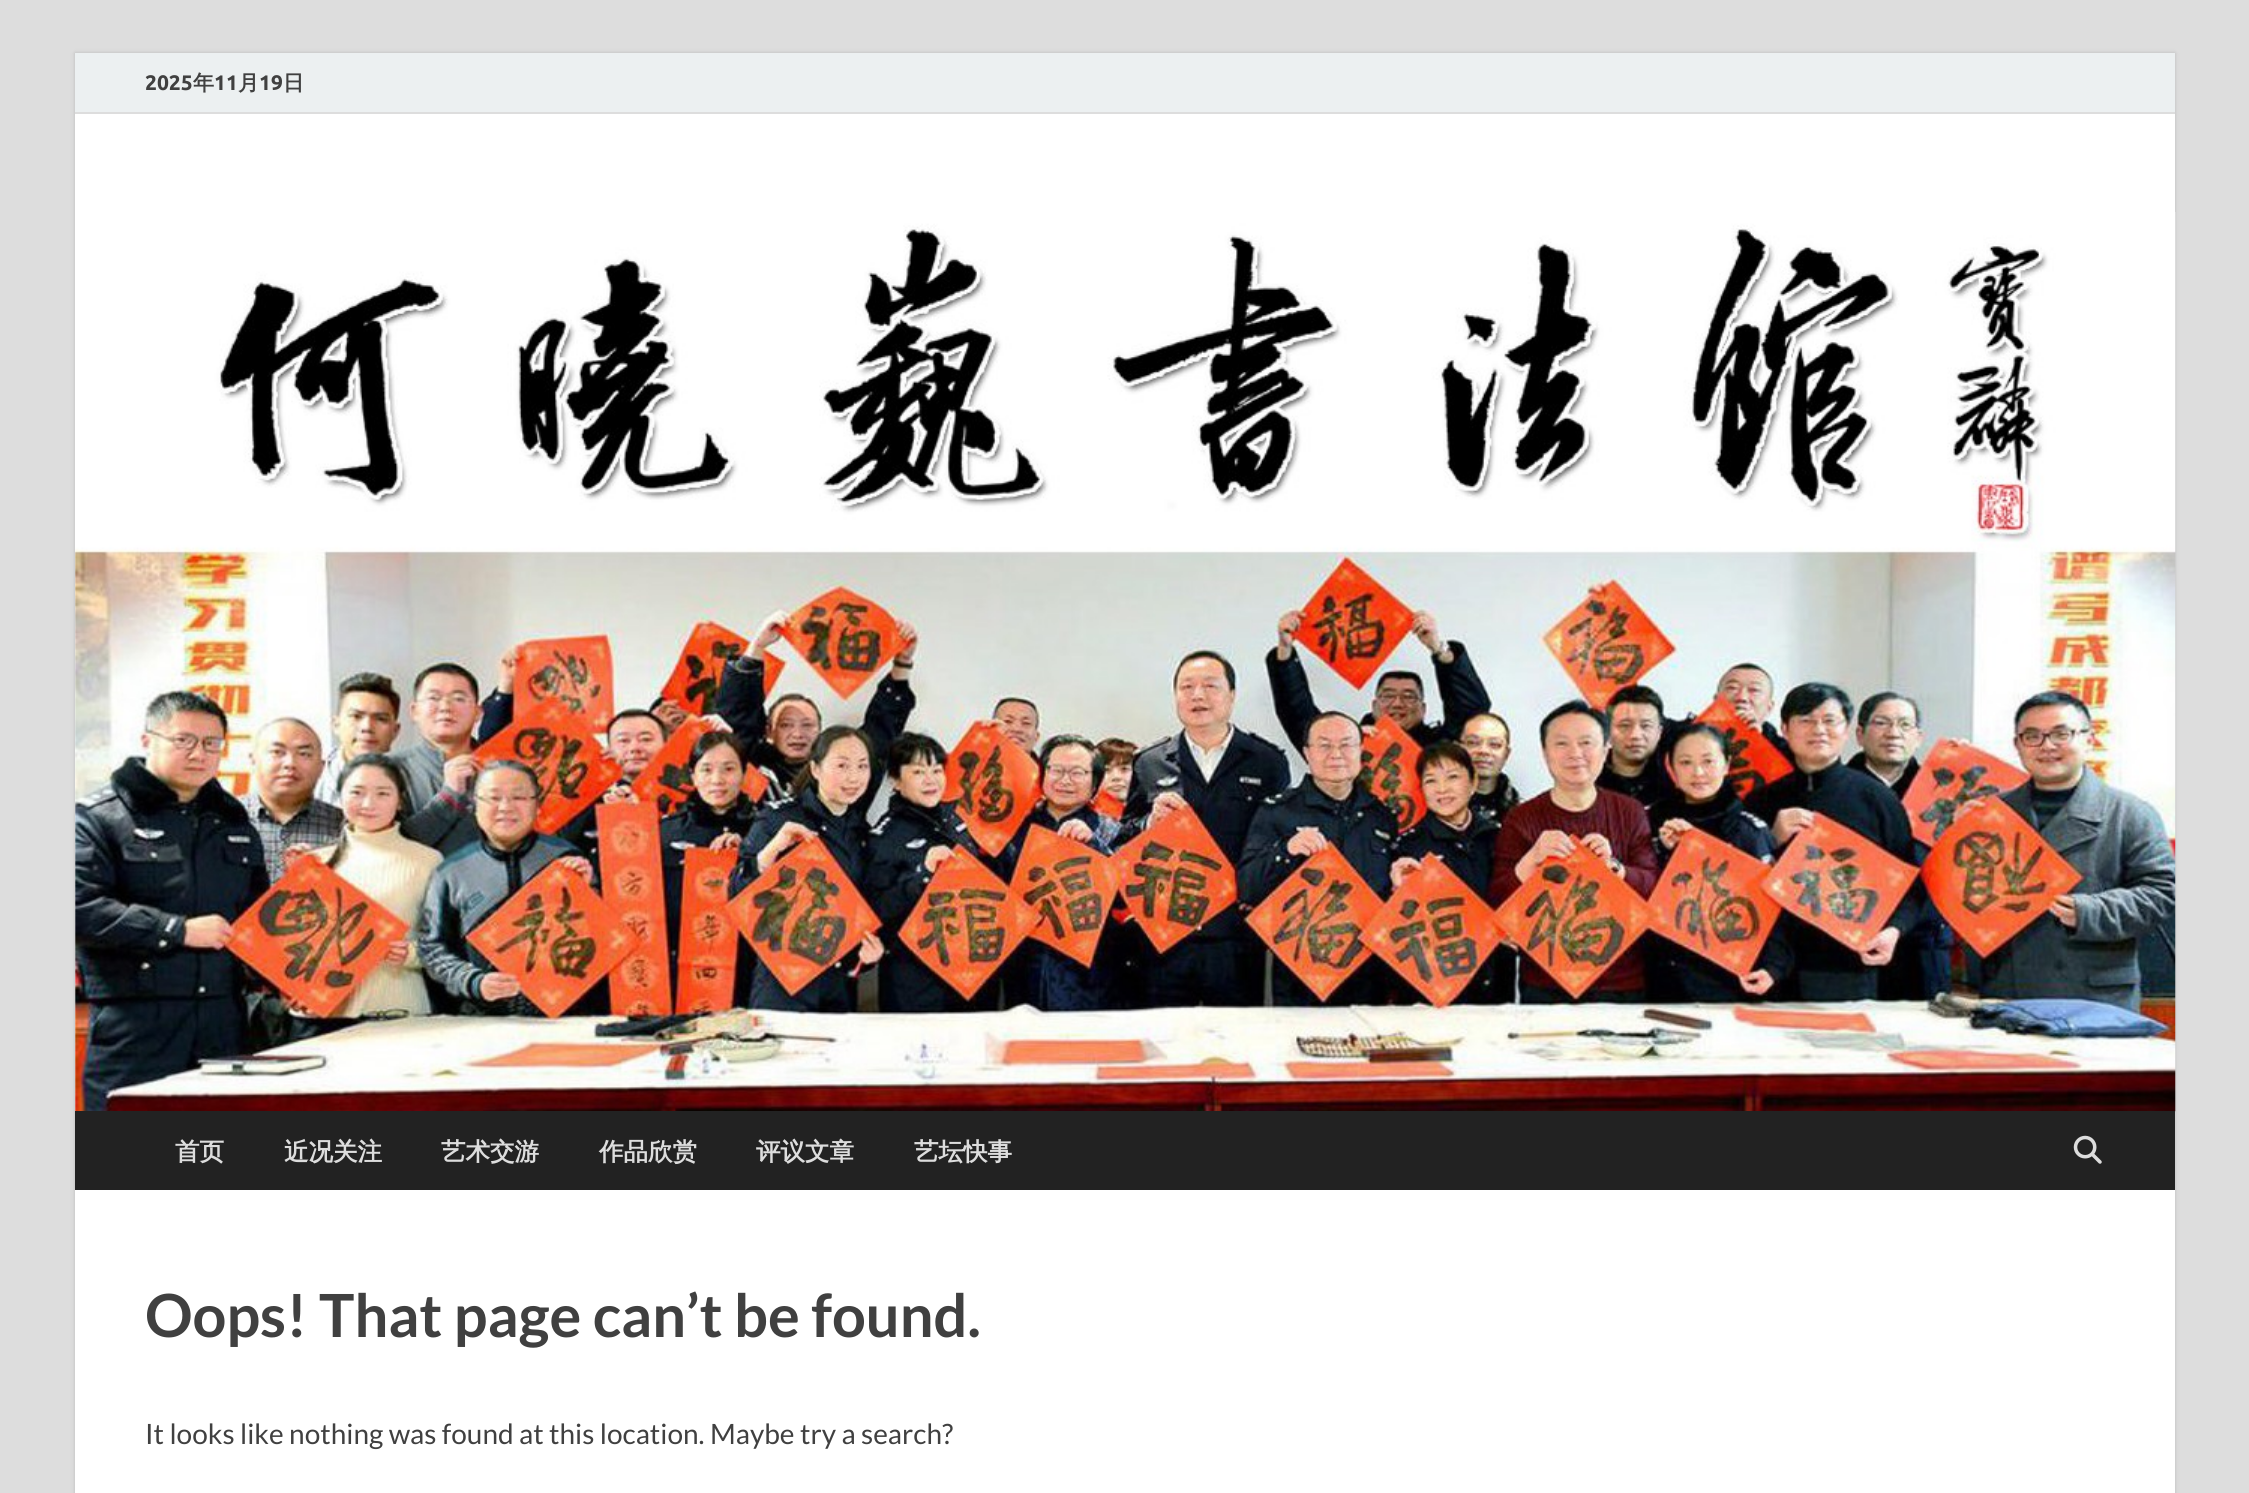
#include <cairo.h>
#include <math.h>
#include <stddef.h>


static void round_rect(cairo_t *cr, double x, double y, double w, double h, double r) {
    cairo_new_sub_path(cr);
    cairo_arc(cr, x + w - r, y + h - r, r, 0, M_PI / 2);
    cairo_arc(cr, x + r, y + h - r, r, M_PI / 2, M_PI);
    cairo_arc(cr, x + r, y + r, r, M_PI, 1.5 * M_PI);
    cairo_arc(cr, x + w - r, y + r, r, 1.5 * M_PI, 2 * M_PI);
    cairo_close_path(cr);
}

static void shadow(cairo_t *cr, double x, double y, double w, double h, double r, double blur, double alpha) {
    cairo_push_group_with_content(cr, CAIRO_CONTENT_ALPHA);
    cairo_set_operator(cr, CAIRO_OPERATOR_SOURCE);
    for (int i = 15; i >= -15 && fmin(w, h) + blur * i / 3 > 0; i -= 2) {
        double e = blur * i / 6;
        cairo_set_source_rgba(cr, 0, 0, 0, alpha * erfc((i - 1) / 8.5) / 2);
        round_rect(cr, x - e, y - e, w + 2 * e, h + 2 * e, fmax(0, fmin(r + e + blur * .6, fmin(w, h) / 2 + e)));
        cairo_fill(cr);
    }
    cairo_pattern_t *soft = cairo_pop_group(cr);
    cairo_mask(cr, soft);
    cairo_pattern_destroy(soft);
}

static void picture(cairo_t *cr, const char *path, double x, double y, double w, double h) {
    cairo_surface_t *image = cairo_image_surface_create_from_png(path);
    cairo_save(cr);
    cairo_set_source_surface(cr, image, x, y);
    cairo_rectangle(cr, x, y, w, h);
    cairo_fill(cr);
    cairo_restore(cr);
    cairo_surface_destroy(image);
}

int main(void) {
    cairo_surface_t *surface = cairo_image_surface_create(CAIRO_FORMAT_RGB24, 2249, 1493);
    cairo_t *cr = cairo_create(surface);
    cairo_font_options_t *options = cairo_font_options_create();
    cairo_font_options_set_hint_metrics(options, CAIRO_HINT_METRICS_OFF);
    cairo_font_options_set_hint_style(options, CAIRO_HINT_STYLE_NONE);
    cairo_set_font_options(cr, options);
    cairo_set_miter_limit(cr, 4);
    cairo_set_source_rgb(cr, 0.867, 0.867, 0.867);
    cairo_paint(cr);
    cairo_set_source_rgb(cr, 0.733, 0.733, 0.733);
    shadow(cr, 75, 53, 2100, 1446, 0, 2, 1);
    cairo_set_source_rgb(cr, 1, 1, 1);
    cairo_rectangle(cr, 75, 114, 2100, 1379);
    cairo_fill(cr);
    cairo_set_source_rgb(cr, 0.925, 0.941, 0.945);
    cairo_rectangle(cr, 75, 53, 2100, 59);
    cairo_fill(cr);
    cairo_set_source_rgb(cr, 0.867, 0.867, 0.867);
    cairo_rectangle(cr, 75, 112, 2100, 2);
    cairo_fill(cr);
    cairo_select_font_face(cr, "Ubuntu", CAIRO_FONT_SLANT_NORMAL, CAIRO_FONT_WEIGHT_BOLD);
    cairo_set_font_size(cr, 21);
    cairo_set_source_rgb(cr, 0.251, 0.251, 0.251);
    cairo_move_to(cr, 145, 90);
    cairo_show_text(cr, "2025");
    cairo_select_font_face(cr, "WenQuanYi Zen Hei", CAIRO_FONT_SLANT_NORMAL, CAIRO_FONT_WEIGHT_BOLD);
    cairo_move_to(cr, 193, 90);
    cairo_show_text(cr, "年");
    cairo_select_font_face(cr, "Ubuntu", CAIRO_FONT_SLANT_NORMAL, CAIRO_FONT_WEIGHT_BOLD);
    cairo_move_to(cr, 214, 90);
    cairo_show_text(cr, "11");
    cairo_select_font_face(cr, "WenQuanYi Zen Hei", CAIRO_FONT_SLANT_NORMAL, CAIRO_FONT_WEIGHT_BOLD);
    cairo_move_to(cr, 238, 90);
    cairo_show_text(cr, "月");
    cairo_select_font_face(cr, "Ubuntu", CAIRO_FONT_SLANT_NORMAL, CAIRO_FONT_WEIGHT_BOLD);
    cairo_move_to(cr, 259, 90);
    cairo_show_text(cr, "19");
    cairo_select_font_face(cr, "WenQuanYi Zen Hei", CAIRO_FONT_SLANT_NORMAL, CAIRO_FONT_WEIGHT_BOLD);
    cairo_move_to(cr, 283, 90);
    cairo_show_text(cr, "日");
    picture(cr, "img1.png", 75, 212, 2101, 900);
    cairo_set_source_rgb(cr, 0.133, 0.133, 0.133);
    cairo_rectangle(cr, 75, 1111, 2100, 79);
    cairo_fill(cr);
    cairo_set_font_size(cr, 24.5);
    cairo_set_source_rgb(cr, 0.867, 0.867, 0.867);
    cairo_move_to(cr, 175, 1160);
    cairo_show_text(cr, "首页");
    cairo_move_to(cr, 284, 1160);
    cairo_show_text(cr, "近况关注");
    cairo_move_to(cr, 441, 1160);
    cairo_show_text(cr, "艺术交游");
    cairo_move_to(cr, 599, 1160);
    cairo_show_text(cr, "作品欣赏");
    cairo_move_to(cr, 756, 1160);
    cairo_show_text(cr, "评议文章");
    cairo_move_to(cr, 914, 1160);
    cairo_show_text(cr, "艺坛快事");
    picture(cr, "img2.png", 2073, 1135, 29, 29);
    cairo_select_font_face(cr, "Lato", CAIRO_FONT_SLANT_NORMAL, CAIRO_FONT_WEIGHT_BOLD);
    cairo_set_font_size(cr, 59.5);
    cairo_set_source_rgb(cr, 0.251, 0.251, 0.251);
    cairo_move_to(cr, 145, 1337);
    cairo_show_text(cr, "Oops! That page can’t be found.");
    cairo_select_font_face(cr, "Lato", CAIRO_FONT_SLANT_NORMAL, CAIRO_FONT_WEIGHT_NORMAL);
    cairo_set_font_size(cr, 28);
    cairo_move_to(cr, 145, 1444);
    cairo_show_text(cr, "It looks like nothing was found at this location. Maybe try a search?");
    cairo_surface_write_to_png(surface, "page.png");
    cairo_font_options_destroy(options);
    cairo_destroy(cr);
    cairo_surface_destroy(surface);
    return 0;
}
